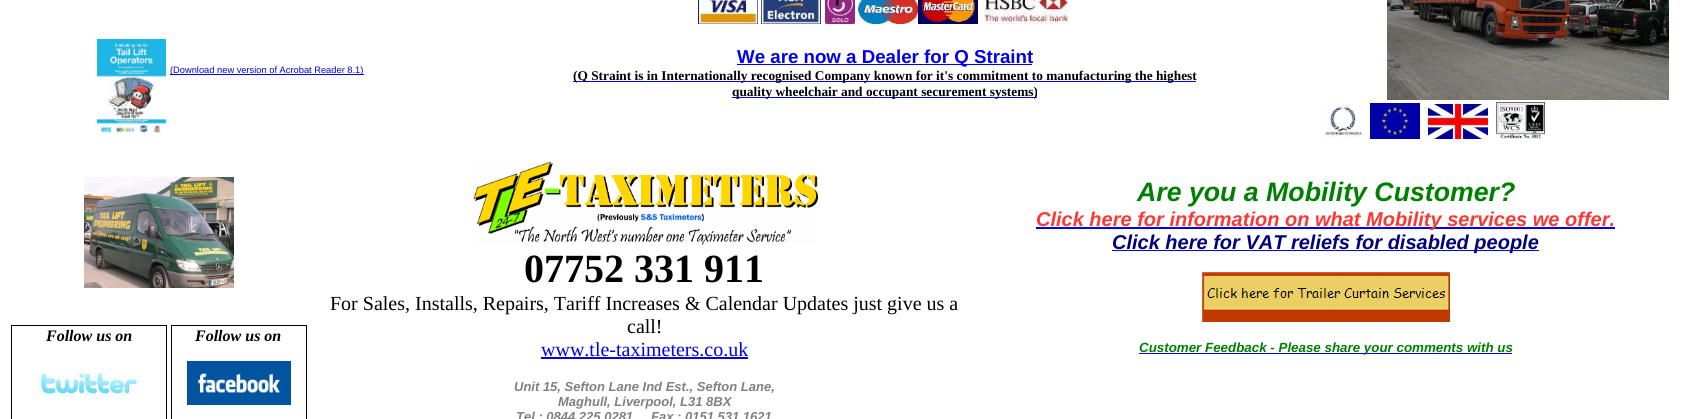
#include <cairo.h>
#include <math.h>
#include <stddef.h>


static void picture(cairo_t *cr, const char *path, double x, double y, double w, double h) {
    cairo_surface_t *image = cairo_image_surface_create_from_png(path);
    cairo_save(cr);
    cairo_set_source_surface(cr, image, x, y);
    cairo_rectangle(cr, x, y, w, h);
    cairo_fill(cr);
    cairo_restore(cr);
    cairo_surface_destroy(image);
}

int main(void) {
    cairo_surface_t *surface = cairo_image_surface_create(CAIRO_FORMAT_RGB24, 1697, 419);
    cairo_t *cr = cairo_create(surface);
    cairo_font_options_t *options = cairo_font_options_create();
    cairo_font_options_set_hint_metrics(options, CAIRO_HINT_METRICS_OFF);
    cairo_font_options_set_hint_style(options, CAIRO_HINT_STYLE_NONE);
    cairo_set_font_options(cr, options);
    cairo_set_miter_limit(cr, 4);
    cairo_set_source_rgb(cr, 1, 1, 1);
    cairo_paint(cr);
    picture(cr, "img1.png", 97, 39, 69, 95);
    cairo_set_source_rgb(cr, 0, 0, 0.933);
    cairo_rectangle(cr, 170, 74, 194, 1);
    cairo_fill(cr);
    cairo_select_font_face(cr, "Liberation Sans", CAIRO_FONT_SLANT_NORMAL, CAIRO_FONT_WEIGHT_NORMAL);
    cairo_set_font_size(cr, 9.3);
    cairo_move_to(cr, 170, 73);
    cairo_show_text(cr, "(Download new version of Acrobat Reader 8.1)");
    picture(cr, "img2.png", 698, 0, 60, 24);
    picture(cr, "img3.png", 761, 0, 60, 24);
    picture(cr, "img4.png", 825, 0, 30, 24);
    picture(cr, "img5.png", 858, 0, 60, 24);
    picture(cr, "img6.png", 918, 0, 60, 24);
    picture(cr, "img7.png", 981, 0, 90, 24);
    cairo_rectangle(cr, 737, 64, 295, 1);
    cairo_fill(cr);
    cairo_select_font_face(cr, "Liberation Sans", CAIRO_FONT_SLANT_NORMAL, CAIRO_FONT_WEIGHT_BOLD);
    cairo_set_font_size(cr, 18.7);
    cairo_move_to(cr, 737, 63);
    cairo_show_text(cr, "We are now a Dealer for Q Straint");
    cairo_rectangle(cr, 573, 81, 623, 1);
    cairo_fill(cr);
    cairo_select_font_face(cr, "Liberation Serif", CAIRO_FONT_SLANT_NORMAL, CAIRO_FONT_WEIGHT_BOLD);
    cairo_set_font_size(cr, 13.35);
    cairo_set_source_rgb(cr, 0, 0, 0);
    cairo_move_to(cr, 573, 80);
    cairo_show_text(cr, "(Q Straint is in Internationally recognised Company known for it's commitment to manufacturing the highest");
    cairo_set_source_rgb(cr, 0, 0, 0.933);
    cairo_rectangle(cr, 732, 97, 305, 1);
    cairo_fill(cr);
    cairo_set_source_rgb(cr, 0, 0, 0);
    cairo_move_to(cr, 732, 96);
    cairo_show_text(cr, "quality wheelchair and occupant securement systems)");
    picture(cr, "img8.png", 1387, 0, 282, 100);
    picture(cr, "img9.png", 1325, 103, 37, 36);
    picture(cr, "img10.png", 1370, 103, 50, 36);
    picture(cr, "img11.png", 1428, 104, 60, 35);
    picture(cr, "img12.png", 1496, 102, 49, 37);
    cairo_rectangle(cr, 11.5, 325.5, 155, 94);
    cairo_set_line_width(cr, 1);
    cairo_stroke(cr);
    cairo_select_font_face(cr, "Liberation Serif", CAIRO_FONT_SLANT_ITALIC, CAIRO_FONT_WEIGHT_BOLD);
    cairo_set_font_size(cr, 16);
    cairo_move_to(cr, 46, 341);
    cairo_show_text(cr, "Follow us on");
    picture(cr, "img13.png", 39, 371, 100, 25);
    cairo_rectangle(cr, 171.5, 325.5, 135, 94);
    cairo_stroke(cr);
    cairo_move_to(cr, 195, 341);
    cairo_show_text(cr, "Follow us on");
    picture(cr, "img14.png", 187, 361, 104, 44);
    picture(cr, "img15.png", 84, 177, 150, 111);
    picture(cr, "img16.png", 473, 161, 345, 84);
    cairo_select_font_face(cr, "Liberation Serif", CAIRO_FONT_SLANT_NORMAL, CAIRO_FONT_WEIGHT_BOLD);
    cairo_set_font_size(cr, 40);
    cairo_move_to(cr, 524, 282);
    cairo_show_text(cr, "07752 331 911");
    cairo_select_font_face(cr, "Liberation Serif", CAIRO_FONT_SLANT_NORMAL, CAIRO_FONT_WEIGHT_NORMAL);
    cairo_set_font_size(cr, 20);
    cairo_move_to(cr, 330, 310);
    cairo_show_text(cr, "For Sales, Installs, Repairs, Tariff Increases & Calendar Updates just give us a");
    cairo_move_to(cr, 627, 333);
    cairo_show_text(cr, "call!");
    cairo_set_source_rgb(cr, 0, 0, 0.933);
    cairo_move_to(cr, 541, 356);
    cairo_show_text(cr, "www.tle-taximeters.co.uk");
    cairo_rectangle(cr, 541, 357, 207, 2);
    cairo_fill(cr);
    cairo_select_font_face(cr, "Liberation Sans", CAIRO_FONT_SLANT_ITALIC, CAIRO_FONT_WEIGHT_BOLD);
    cairo_set_font_size(cr, 13);
    cairo_set_source_rgb(cr, 0.502, 0.502, 0.502);
    cairo_move_to(cr, 514, 391);
    cairo_show_text(cr, "Unit 15, Sefton Lane Ind Est., Sefton Lane,");
    cairo_move_to(cr, 558, 406);
    cairo_show_text(cr, "Maghull, Liverpool, L31 8BX");
    cairo_move_to(cr, 516, 421);
    cairo_show_text(cr, "Tel : 0844 225 0281");
    cairo_move_to(cr, 651, 421);
    cairo_show_text(cr, "Fax : 0151 531 1621");
    cairo_set_font_size(cr, 26.7);
    cairo_set_source_rgb(cr, 0, 0.502, 0);
    cairo_move_to(cr, 1137, 201);
    cairo_show_text(cr, "Are you a Mobility Customer?");
    cairo_set_source_rgb(cr, 0, 0, 0.933);
    cairo_rectangle(cr, 1036, 227, 579, 2);
    cairo_fill(cr);
    cairo_set_font_size(cr, 20);
    cairo_set_source_rgb(cr, 0.984, 0.22, 0.2);
    cairo_move_to(cr, 1036, 226);
    cairo_show_text(cr, "Click here for information on what Mobility services we offer.");
    cairo_set_source_rgb(cr, 0, 0, 0.933);
    cairo_rectangle(cr, 1112, 250, 427, 1);
    cairo_fill(cr);
    cairo_set_source_rgb(cr, 0, 0, 0.502);
    cairo_move_to(cr, 1112, 249);
    cairo_show_text(cr, "Click here for VAT reliefs for disabled people");
    picture(cr, "img17.png", 1202, 272, 248, 50);
    cairo_set_source_rgb(cr, 0, 0, 0.933);
    cairo_rectangle(cr, 1139, 353, 373, 1);
    cairo_fill(cr);
    cairo_set_font_size(cr, 13.35);
    cairo_set_source_rgb(cr, 0, 0.502, 0);
    cairo_move_to(cr, 1139, 352);
    cairo_show_text(cr, "Customer Feedback - Please share your comments with us");
    cairo_surface_write_to_png(surface, "page.png");
    cairo_font_options_destroy(options);
    cairo_destroy(cr);
    cairo_surface_destroy(surface);
    return 0;
}
